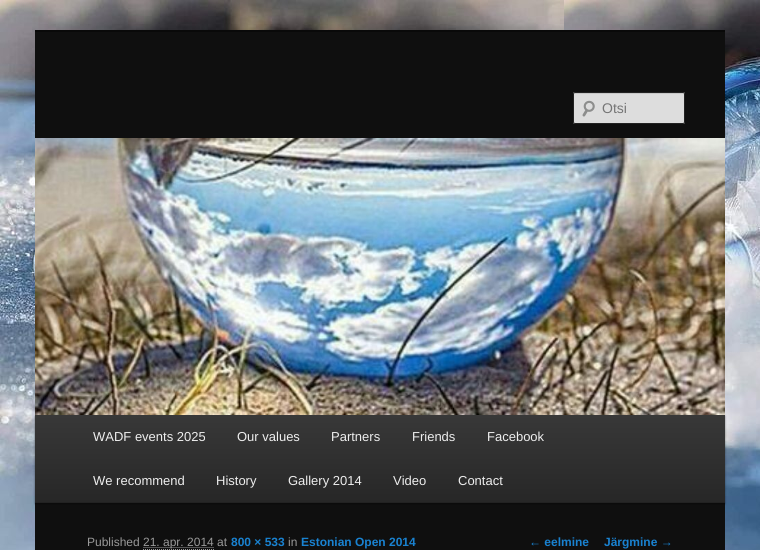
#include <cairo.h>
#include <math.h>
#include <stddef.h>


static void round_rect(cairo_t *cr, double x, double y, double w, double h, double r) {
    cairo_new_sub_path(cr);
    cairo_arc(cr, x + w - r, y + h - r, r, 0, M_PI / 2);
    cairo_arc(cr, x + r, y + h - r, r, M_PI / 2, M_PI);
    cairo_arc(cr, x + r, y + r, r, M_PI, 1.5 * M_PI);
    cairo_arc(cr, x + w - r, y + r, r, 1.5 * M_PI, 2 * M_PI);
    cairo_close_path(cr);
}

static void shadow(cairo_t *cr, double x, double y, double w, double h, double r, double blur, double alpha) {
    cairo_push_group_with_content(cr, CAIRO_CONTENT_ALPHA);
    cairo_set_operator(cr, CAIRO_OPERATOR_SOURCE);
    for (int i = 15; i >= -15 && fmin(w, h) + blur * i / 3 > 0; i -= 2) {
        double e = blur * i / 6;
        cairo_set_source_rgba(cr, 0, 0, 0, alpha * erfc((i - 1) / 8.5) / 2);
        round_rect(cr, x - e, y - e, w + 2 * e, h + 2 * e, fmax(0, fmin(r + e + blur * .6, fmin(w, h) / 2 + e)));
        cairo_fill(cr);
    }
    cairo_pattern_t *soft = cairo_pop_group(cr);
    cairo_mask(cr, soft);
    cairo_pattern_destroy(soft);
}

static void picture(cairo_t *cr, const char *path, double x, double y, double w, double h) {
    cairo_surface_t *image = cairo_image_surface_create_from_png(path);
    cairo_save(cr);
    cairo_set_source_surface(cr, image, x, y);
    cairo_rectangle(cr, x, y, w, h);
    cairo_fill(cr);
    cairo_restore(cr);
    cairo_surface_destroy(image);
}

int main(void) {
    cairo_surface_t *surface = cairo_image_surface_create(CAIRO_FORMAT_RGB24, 760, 550);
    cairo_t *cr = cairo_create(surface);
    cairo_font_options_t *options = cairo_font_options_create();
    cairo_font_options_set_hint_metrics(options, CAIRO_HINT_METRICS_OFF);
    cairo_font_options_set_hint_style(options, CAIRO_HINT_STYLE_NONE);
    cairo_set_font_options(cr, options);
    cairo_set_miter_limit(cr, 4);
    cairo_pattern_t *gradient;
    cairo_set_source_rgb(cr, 1, 1, 1);
    cairo_paint(cr);
    picture(cr, "img1.png", 0, 0, 760, 550);
    cairo_set_source_rgb(cr, 0.059, 0.059, 0.059);
    cairo_rectangle(cr, 35, 32, 690, 518);
    cairo_fill(cr);
    cairo_set_source_rgb(cr, 0.039, 0.039, 0.039);
    cairo_rectangle(cr, 35, 30, 690, 2);
    cairo_fill(cr);
    cairo_set_source_rgb(cr, 0.867, 0.867, 0.867);
    round_rect(cr, 573, 92, 112, 32, 2);
    cairo_fill(cr);
    picture(cr, "img2.png", 582, 100, 13, 17);
    cairo_set_source_rgba(cr, 0, 0, 0, 0.1);
    cairo_new_path(cr);
    cairo_move_to(cr, 575, 94);
    cairo_line_to(cr, 684, 94);
    cairo_line_to(cr, 684, 95);
    cairo_line_to(cr, 683, 93);
    cairo_line_to(cr, 593, 93);
    cairo_curve_to(cr, 589, 93, 574, 88, 574, 95);
    cairo_curve_to(cr, 574, 94, 574, 94, 575, 94);
    cairo_close_path(cr);
    cairo_fill(cr);
    round_rect(cr, 573.5, 92.5, 111, 31, 1.5);
    cairo_set_source_rgb(cr, 0.133, 0.133, 0.133);
    cairo_set_line_width(cr, 1);
    cairo_stroke(cr);
    cairo_select_font_face(cr, "Liberation Sans", CAIRO_FONT_SLANT_NORMAL, CAIRO_FONT_WEIGHT_NORMAL);
    cairo_set_font_size(cr, 14);
    cairo_set_source_rgb(cr, 0.459, 0.459, 0.459);
    cairo_move_to(cr, 602, 113);
    cairo_show_text(cr, "Otsi");
    cairo_set_source_rgb(cr, 0, 0, 0);
    shadow(cr, 35, 416, 690, 88, 0, 1, 0.4);
    picture(cr, "img3.png", 35, 138, 690, 277);
    gradient = cairo_pattern_create_linear(380, 415, 380, 502);
    cairo_pattern_add_color_stop_rgba(gradient, 0, 0.22, 0.22, 0.22, 1);
    cairo_pattern_add_color_stop_rgba(gradient, 1, 0.153, 0.153, 0.153, 1);
    cairo_set_source(cr, gradient);
    cairo_pattern_destroy(gradient);
    cairo_rectangle(cr, 35, 415, 690, 87);
    cairo_fill(cr);
    cairo_set_source_rgb(cr, 0.133, 0.133, 0.133);
    cairo_rectangle(cr, 35, 502, 690, 1);
    cairo_fill(cr);
    cairo_set_font_size(cr, 13);
    cairo_set_source_rgb(cr, 0.933, 0.933, 0.933);
    cairo_move_to(cr, 93, 441);
    cairo_show_text(cr, "WADF events 2025");
    cairo_move_to(cr, 237, 441);
    cairo_show_text(cr, "Our values");
    cairo_move_to(cr, 331, 441);
    cairo_show_text(cr, "Partners");
    cairo_move_to(cr, 412, 441);
    cairo_show_text(cr, "Friends");
    cairo_move_to(cr, 487, 441);
    cairo_show_text(cr, "Facebook");
    cairo_move_to(cr, 93, 485);
    cairo_show_text(cr, "We recommend");
    cairo_move_to(cr, 216, 485);
    cairo_show_text(cr, "History");
    cairo_move_to(cr, 288, 485);
    cairo_show_text(cr, "Gallery 2014");
    cairo_move_to(cr, 393, 485);
    cairo_show_text(cr, "Video");
    cairo_move_to(cr, 458, 485);
    cairo_show_text(cr, "Contact");
    cairo_set_font_size(cr, 12);
    cairo_set_source_rgb(cr, 0.6, 0.6, 0.6);
    cairo_move_to(cr, 87, 546);
    cairo_show_text(cr, "Published");
    cairo_new_path(cr);
    cairo_move_to(cr, 143.5, 547.5);
    cairo_line_to(cr, 214, 547.5);
    cairo_set_dash(cr, (double[]){1, 1}, 2, 0);
    cairo_stroke(cr);
    cairo_move_to(cr, 143, 546);
    cairo_show_text(cr, "21. apr. 2014 at");
    cairo_new_path(cr);
    cairo_move_to(cr, 143, 549.5);
    cairo_line_to(cr, 214, 549.5);
    cairo_stroke(cr);
    cairo_select_font_face(cr, "Liberation Sans", CAIRO_FONT_SLANT_NORMAL, CAIRO_FONT_WEIGHT_BOLD);
    cairo_set_source_rgb(cr, 0.098, 0.51, 0.82);
    cairo_move_to(cr, 231, 546);
    cairo_show_text(cr, "800 × 533");
    cairo_select_font_face(cr, "Liberation Sans", CAIRO_FONT_SLANT_NORMAL, CAIRO_FONT_WEIGHT_NORMAL);
    cairo_set_source_rgb(cr, 0.6, 0.6, 0.6);
    cairo_move_to(cr, 288, 546);
    cairo_show_text(cr, "in");
    cairo_select_font_face(cr, "Liberation Sans", CAIRO_FONT_SLANT_NORMAL, CAIRO_FONT_WEIGHT_BOLD);
    cairo_set_source_rgb(cr, 0.098, 0.51, 0.82);
    cairo_move_to(cr, 301, 546);
    cairo_show_text(cr, "Estonian Open 2014");
    cairo_move_to(cr, 529, 546);
    cairo_show_text(cr, "← eelmine");
    cairo_move_to(cr, 604, 546);
    cairo_show_text(cr, "Järgmine →");
    cairo_surface_write_to_png(surface, "page.png");
    cairo_font_options_destroy(options);
    cairo_destroy(cr);
    cairo_surface_destroy(surface);
    return 0;
}
